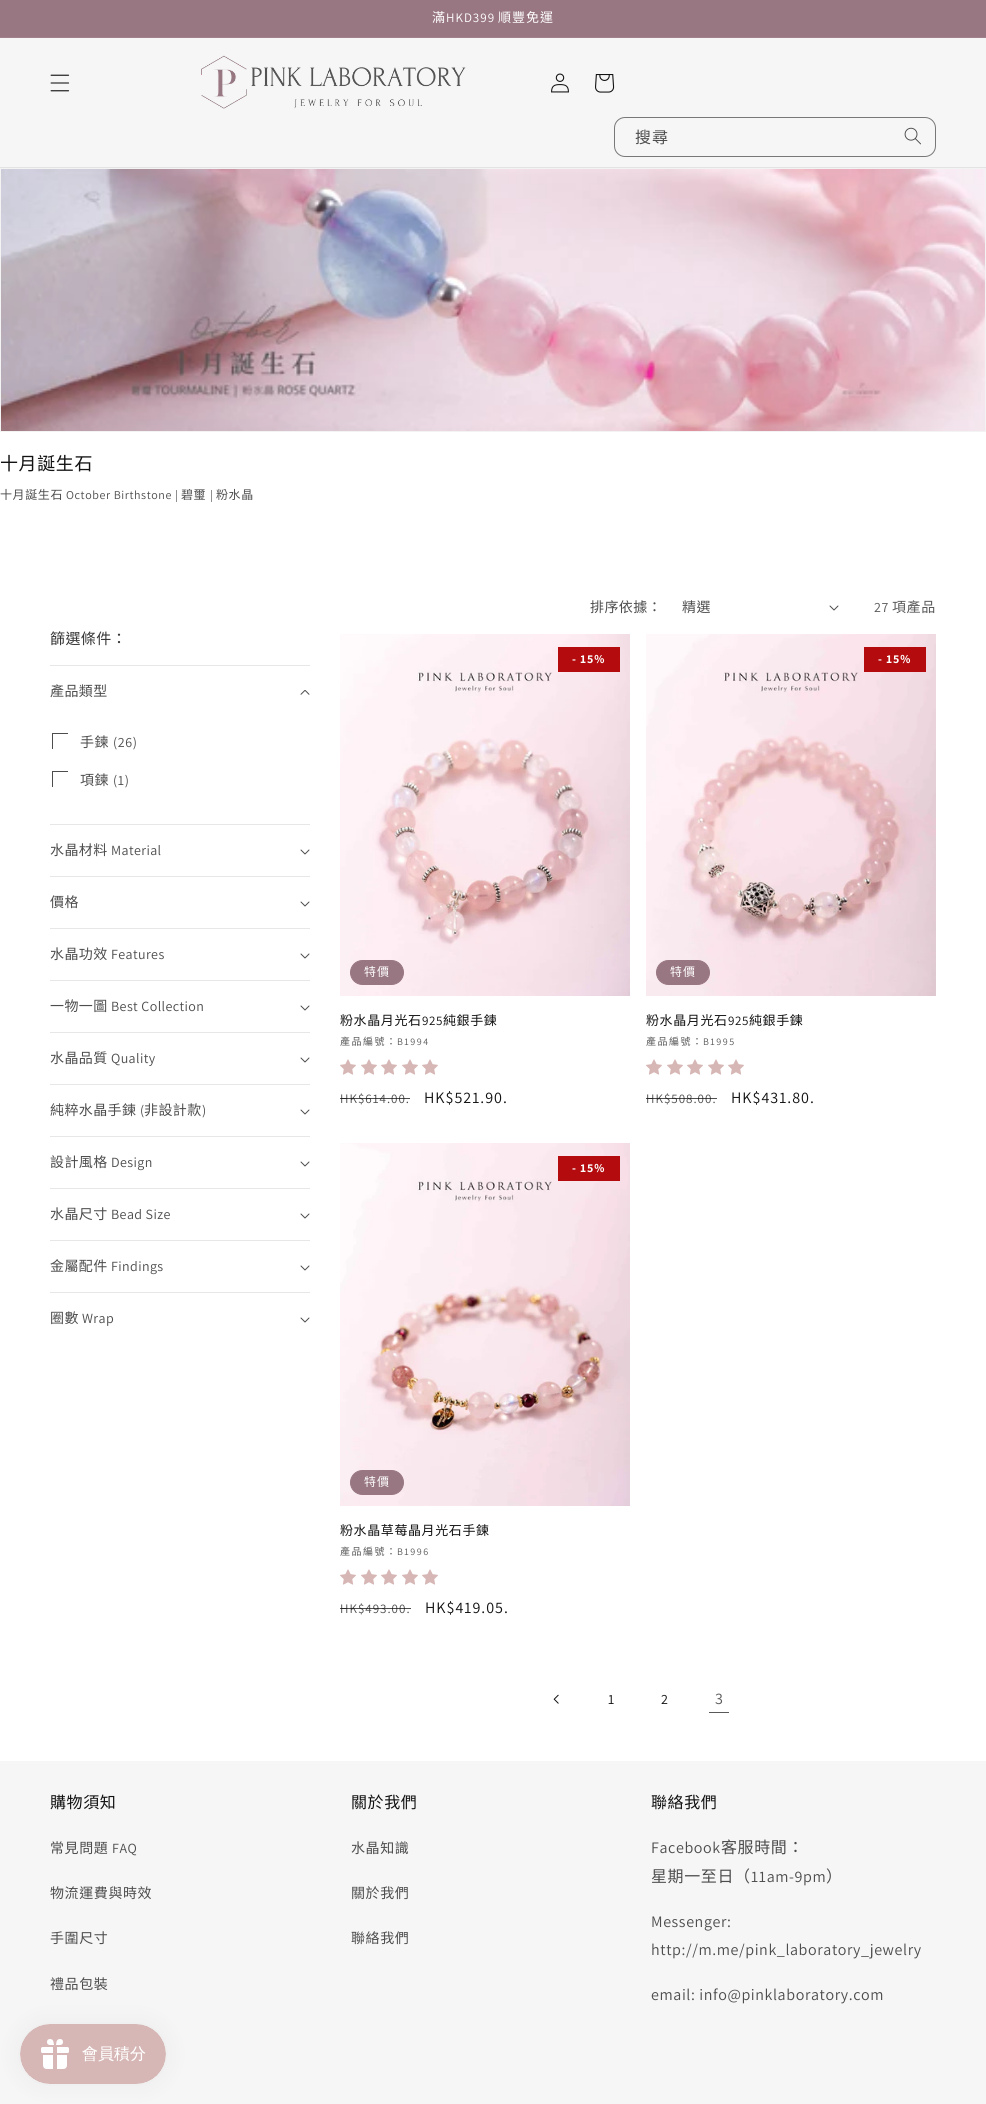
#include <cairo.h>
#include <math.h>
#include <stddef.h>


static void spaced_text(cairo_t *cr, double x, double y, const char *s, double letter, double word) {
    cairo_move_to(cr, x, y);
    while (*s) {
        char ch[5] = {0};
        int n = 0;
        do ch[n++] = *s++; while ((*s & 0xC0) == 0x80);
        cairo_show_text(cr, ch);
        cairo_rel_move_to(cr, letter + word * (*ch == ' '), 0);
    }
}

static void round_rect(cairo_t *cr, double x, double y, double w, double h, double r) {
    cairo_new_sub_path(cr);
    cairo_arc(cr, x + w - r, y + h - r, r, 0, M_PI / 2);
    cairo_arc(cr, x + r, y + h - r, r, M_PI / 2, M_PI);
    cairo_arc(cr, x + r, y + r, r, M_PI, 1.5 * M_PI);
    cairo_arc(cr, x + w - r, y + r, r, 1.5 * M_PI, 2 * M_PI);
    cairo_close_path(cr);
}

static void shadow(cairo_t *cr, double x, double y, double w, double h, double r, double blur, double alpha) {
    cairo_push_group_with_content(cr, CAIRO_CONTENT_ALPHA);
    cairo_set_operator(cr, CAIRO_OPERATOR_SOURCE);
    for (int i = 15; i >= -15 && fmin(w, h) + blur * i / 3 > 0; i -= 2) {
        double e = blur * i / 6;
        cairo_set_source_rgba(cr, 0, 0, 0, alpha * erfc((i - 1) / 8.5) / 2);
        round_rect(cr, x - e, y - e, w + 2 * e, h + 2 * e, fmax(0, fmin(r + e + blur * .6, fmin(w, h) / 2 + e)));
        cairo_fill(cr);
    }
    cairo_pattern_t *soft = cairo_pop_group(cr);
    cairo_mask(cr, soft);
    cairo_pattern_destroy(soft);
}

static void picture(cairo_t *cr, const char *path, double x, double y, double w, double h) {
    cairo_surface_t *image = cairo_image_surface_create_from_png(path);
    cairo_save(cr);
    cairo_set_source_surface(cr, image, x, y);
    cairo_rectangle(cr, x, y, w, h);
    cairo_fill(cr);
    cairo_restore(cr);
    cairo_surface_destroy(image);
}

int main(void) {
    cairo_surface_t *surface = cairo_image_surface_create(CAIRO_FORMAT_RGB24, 986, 2104);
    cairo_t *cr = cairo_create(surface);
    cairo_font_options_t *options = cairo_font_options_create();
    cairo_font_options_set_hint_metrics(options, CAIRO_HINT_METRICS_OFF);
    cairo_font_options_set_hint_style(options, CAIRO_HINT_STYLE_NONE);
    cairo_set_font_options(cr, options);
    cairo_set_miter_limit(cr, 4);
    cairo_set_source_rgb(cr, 1, 1, 1);
    cairo_paint(cr);
    cairo_set_source_rgb(cr, 0.6, 0.467, 0.51);
    cairo_rectangle(cr, 0, 0, 986, 37);
    cairo_fill(cr);
    cairo_set_source_rgb(cr, 0.631, 0.51, 0.549);
    cairo_rectangle(cr, 0, 37, 986, 1);
    cairo_fill(cr);
    cairo_select_font_face(cr, "Noto Sans CJK TC", CAIRO_FONT_SLANT_NORMAL, CAIRO_FONT_WEIGHT_NORMAL);
    cairo_set_font_size(cr, 13);
    cairo_set_source_rgb(cr, 1, 1, 1);
    spaced_text(cr, 432, 22, "滿", 1, 0);
    cairo_select_font_face(cr, "Assistant", CAIRO_FONT_SLANT_NORMAL, CAIRO_FONT_WEIGHT_NORMAL);
    spaced_text(cr, 446, 22, "HKD399", 1, 0);
    cairo_select_font_face(cr, "Noto Sans CJK TC", CAIRO_FONT_SLANT_NORMAL, CAIRO_FONT_WEIGHT_NORMAL);
    spaced_text(cr, 498, 22, "順豐免運", 1, 0);
    cairo_set_source_rgb(cr, 0.961, 0.961, 0.961);
    cairo_rectangle(cr, 0, 38, 986, 129);
    cairo_fill(cr);
    cairo_set_source_rgb(cr, 0.89, 0.89, 0.89);
    cairo_rectangle(cr, 0, 167, 986, 1);
    cairo_fill(cr);
    picture(cr, "img1.png", 50, 74, 20, 18);
    picture(cr, "img2.png", 201, 55, 265, 54);
    picture(cr, "img3.png", 551, 73, 18, 20);
    picture(cr, "img4.png", 595, 74, 20, 19);
    picture(cr, "img5.png", 904, 127, 17, 18);
    round_rect(cr, 614.5, 117.5, 321, 39, 10.5);
    cairo_set_source_rgb(cr, 0.471, 0.471, 0.471);
    cairo_set_line_width(cr, 1);
    cairo_stroke(cr);
    cairo_set_font_size(cr, 16);
    cairo_set_source_rgb(cr, 0.302, 0.302, 0.302);
    spaced_text(cr, 635, 143, "搜尋", 1, 0);
    cairo_rectangle(cr, 0.5, 168.5, 985, 263);
    cairo_set_source_rgb(cr, 0.953, 0.953, 0.953);
    cairo_stroke(cr);
    picture(cr, "img6.png", 1, 169, 984, 262);
    cairo_set_font_size(cr, 18);
    cairo_set_source_rgb(cr, 0.071, 0.071, 0.071);
    spaced_text(cr, 0, 470, "十月誕生石", 0.6, 0);
    cairo_set_font_size(cr, 12);
    cairo_set_source_rgb(cr, 0.302, 0.302, 0.302);
    spaced_text(cr, 0, 499, "十月誕生石", 0.6, 0);
    cairo_select_font_face(cr, "Assistant", CAIRO_FONT_SLANT_NORMAL, CAIRO_FONT_WEIGHT_NORMAL);
    spaced_text(cr, 66, 499, "October Birthstone |", 0.6, 0);
    cairo_select_font_face(cr, "Noto Sans CJK TC", CAIRO_FONT_SLANT_NORMAL, CAIRO_FONT_WEIGHT_NORMAL);
    spaced_text(cr, 181, 499, "碧璽", 0.6, 0);
    cairo_select_font_face(cr, "Assistant", CAIRO_FONT_SLANT_NORMAL, CAIRO_FONT_WEIGHT_NORMAL);
    spaced_text(cr, 210, 499, "|", 0.6, 0);
    cairo_select_font_face(cr, "Noto Sans CJK TC", CAIRO_FONT_SLANT_NORMAL, CAIRO_FONT_WEIGHT_NORMAL);
    spaced_text(cr, 216, 499, "粉水晶", 0.6, 0);
    cairo_set_font_size(cr, 14);
    spaced_text(cr, 590, 612, "排序依據：", 0.4, 0);
    spaced_text(cr, 682, 612, "精選", 0.4, 0);
    picture(cr, "img7.png", 829, 605, 10, 6);
    cairo_select_font_face(cr, "Assistant", CAIRO_FONT_SLANT_NORMAL, CAIRO_FONT_WEIGHT_NORMAL);
    cairo_set_source_rgb(cr, 0.349, 0.349, 0.349);
    spaced_text(cr, 874, 612, "27", 0.6, 0);
    cairo_select_font_face(cr, "Noto Sans CJK TC", CAIRO_FONT_SLANT_NORMAL, CAIRO_FONT_WEIGHT_NORMAL);
    spaced_text(cr, 892, 612, "項產品", 0.6, 0);
    cairo_set_font_size(cr, 15);
    cairo_set_source_rgb(cr, 0.212, 0.212, 0.212);
    spaced_text(cr, 50, 644, "篩選條件：", 0.4, 0);
    cairo_set_source_rgb(cr, 0.906, 0.906, 0.906);
    cairo_rectangle(cr, 50, 665, 260, 1);
    cairo_fill(cr);
    cairo_set_font_size(cr, 14);
    cairo_set_source_rgb(cr, 0.302, 0.302, 0.302);
    spaced_text(cr, 50, 696, "產品類型", 0.4, 0);
    picture(cr, "img8.png", 300, 690, 10, 5);
    cairo_save(cr);
    cairo_rectangle(cr, 52, 733, 16, 16);
    cairo_clip(cr);
    cairo_rectangle(cr, 52.5, 733.5, 16, 16);
    cairo_stroke(cr);
    cairo_restore(cr);
    spaced_text(cr, 80, 747, "手鍊", 0.6, 0);
    cairo_select_font_face(cr, "Assistant", CAIRO_FONT_SLANT_NORMAL, CAIRO_FONT_WEIGHT_NORMAL);
    spaced_text(cr, 113, 747, "(26)", 0.6, 0);
    cairo_save(cr);
    cairo_rectangle(cr, 52, 771, 16, 16);
    cairo_clip(cr);
    cairo_rectangle(cr, 52.5, 771.5, 16, 16);
    cairo_stroke(cr);
    cairo_restore(cr);
    cairo_select_font_face(cr, "Noto Sans CJK TC", CAIRO_FONT_SLANT_NORMAL, CAIRO_FONT_WEIGHT_NORMAL);
    spaced_text(cr, 80, 785, "項鍊", 0.6, 0);
    cairo_select_font_face(cr, "Assistant", CAIRO_FONT_SLANT_NORMAL, CAIRO_FONT_WEIGHT_NORMAL);
    spaced_text(cr, 113, 785, "(1)", 0.6, 0);
    cairo_set_source_rgb(cr, 0.906, 0.906, 0.906);
    cairo_rectangle(cr, 50, 824, 260, 1);
    cairo_fill(cr);
    cairo_select_font_face(cr, "Noto Sans CJK TC", CAIRO_FONT_SLANT_NORMAL, CAIRO_FONT_WEIGHT_NORMAL);
    cairo_set_source_rgb(cr, 0.302, 0.302, 0.302);
    spaced_text(cr, 50, 855, "水晶材料", 0.4, 0);
    cairo_select_font_face(cr, "Assistant", CAIRO_FONT_SLANT_NORMAL, CAIRO_FONT_WEIGHT_NORMAL);
    spaced_text(cr, 111, 855, "Material", 0.4, 0);
    picture(cr, "img7.png", 300, 849, 10, 6);
    cairo_set_source_rgb(cr, 0.906, 0.906, 0.906);
    cairo_rectangle(cr, 50, 876, 260, 1);
    cairo_fill(cr);
    cairo_select_font_face(cr, "Noto Sans CJK TC", CAIRO_FONT_SLANT_NORMAL, CAIRO_FONT_WEIGHT_NORMAL);
    cairo_set_source_rgb(cr, 0.302, 0.302, 0.302);
    spaced_text(cr, 50, 907, "價格", 0.4, 0);
    picture(cr, "img7.png", 300, 901, 10, 6);
    cairo_set_source_rgb(cr, 0.906, 0.906, 0.906);
    cairo_rectangle(cr, 50, 928, 260, 1);
    cairo_fill(cr);
    cairo_set_source_rgb(cr, 0.302, 0.302, 0.302);
    spaced_text(cr, 50, 959, "水晶功效", 0.4, 0);
    cairo_select_font_face(cr, "Assistant", CAIRO_FONT_SLANT_NORMAL, CAIRO_FONT_WEIGHT_NORMAL);
    spaced_text(cr, 111, 959, "Features", 0.4, 0);
    picture(cr, "img7.png", 300, 953, 10, 6);
    cairo_set_source_rgb(cr, 0.906, 0.906, 0.906);
    cairo_rectangle(cr, 50, 980, 260, 1);
    cairo_fill(cr);
    cairo_select_font_face(cr, "Noto Sans CJK TC", CAIRO_FONT_SLANT_NORMAL, CAIRO_FONT_WEIGHT_NORMAL);
    cairo_set_source_rgb(cr, 0.302, 0.302, 0.302);
    spaced_text(cr, 50, 1011, "一物一圖", 0.4, 0);
    cairo_select_font_face(cr, "Assistant", CAIRO_FONT_SLANT_NORMAL, CAIRO_FONT_WEIGHT_NORMAL);
    spaced_text(cr, 111, 1011, "Best Collection", 0.4, 0);
    picture(cr, "img7.png", 300, 1005, 10, 6);
    cairo_set_source_rgb(cr, 0.906, 0.906, 0.906);
    cairo_rectangle(cr, 50, 1032, 260, 1);
    cairo_fill(cr);
    cairo_select_font_face(cr, "Noto Sans CJK TC", CAIRO_FONT_SLANT_NORMAL, CAIRO_FONT_WEIGHT_NORMAL);
    cairo_set_source_rgb(cr, 0.302, 0.302, 0.302);
    spaced_text(cr, 50, 1063, "水晶品質", 0.4, 0);
    cairo_select_font_face(cr, "Assistant", CAIRO_FONT_SLANT_NORMAL, CAIRO_FONT_WEIGHT_NORMAL);
    spaced_text(cr, 111, 1063, "Quality", 0.4, 0);
    picture(cr, "img7.png", 300, 1057, 10, 6);
    cairo_set_source_rgb(cr, 0.906, 0.906, 0.906);
    cairo_rectangle(cr, 50, 1084, 260, 1);
    cairo_fill(cr);
    cairo_select_font_face(cr, "Noto Sans CJK TC", CAIRO_FONT_SLANT_NORMAL, CAIRO_FONT_WEIGHT_NORMAL);
    cairo_set_source_rgb(cr, 0.302, 0.302, 0.302);
    spaced_text(cr, 50, 1115, "純粹水晶手鍊", 0.4, 0);
    cairo_select_font_face(cr, "Assistant", CAIRO_FONT_SLANT_NORMAL, CAIRO_FONT_WEIGHT_NORMAL);
    spaced_text(cr, 140, 1115, "(", 0.4, 0);
    cairo_select_font_face(cr, "Noto Sans CJK TC", CAIRO_FONT_SLANT_NORMAL, CAIRO_FONT_WEIGHT_NORMAL);
    spaced_text(cr, 144, 1115, "非設計款", 0.4, 0);
    cairo_select_font_face(cr, "Assistant", CAIRO_FONT_SLANT_NORMAL, CAIRO_FONT_WEIGHT_NORMAL);
    spaced_text(cr, 202, 1115, ")", 0.4, 0);
    picture(cr, "img7.png", 300, 1109, 10, 6);
    cairo_set_source_rgb(cr, 0.906, 0.906, 0.906);
    cairo_rectangle(cr, 50, 1136, 260, 1);
    cairo_fill(cr);
    cairo_select_font_face(cr, "Noto Sans CJK TC", CAIRO_FONT_SLANT_NORMAL, CAIRO_FONT_WEIGHT_NORMAL);
    cairo_set_source_rgb(cr, 0.302, 0.302, 0.302);
    spaced_text(cr, 50, 1167, "設計風格", 0.4, 0);
    cairo_select_font_face(cr, "Assistant", CAIRO_FONT_SLANT_NORMAL, CAIRO_FONT_WEIGHT_NORMAL);
    spaced_text(cr, 111, 1167, "Design", 0.4, 0);
    picture(cr, "img7.png", 300, 1161, 10, 6);
    cairo_set_source_rgb(cr, 0.906, 0.906, 0.906);
    cairo_rectangle(cr, 50, 1188, 260, 1);
    cairo_fill(cr);
    cairo_select_font_face(cr, "Noto Sans CJK TC", CAIRO_FONT_SLANT_NORMAL, CAIRO_FONT_WEIGHT_NORMAL);
    cairo_set_source_rgb(cr, 0.302, 0.302, 0.302);
    spaced_text(cr, 50, 1219, "水晶尺寸", 0.4, 0);
    cairo_select_font_face(cr, "Assistant", CAIRO_FONT_SLANT_NORMAL, CAIRO_FONT_WEIGHT_NORMAL);
    spaced_text(cr, 111, 1219, "Bead Size", 0.4, 0);
    picture(cr, "img7.png", 300, 1213, 10, 6);
    cairo_set_source_rgb(cr, 0.906, 0.906, 0.906);
    cairo_rectangle(cr, 50, 1240, 260, 1);
    cairo_fill(cr);
    cairo_select_font_face(cr, "Noto Sans CJK TC", CAIRO_FONT_SLANT_NORMAL, CAIRO_FONT_WEIGHT_NORMAL);
    cairo_set_source_rgb(cr, 0.302, 0.302, 0.302);
    spaced_text(cr, 50, 1271, "金屬配件", 0.4, 0);
    cairo_select_font_face(cr, "Assistant", CAIRO_FONT_SLANT_NORMAL, CAIRO_FONT_WEIGHT_NORMAL);
    spaced_text(cr, 111, 1271, "Findings", 0.4, 0);
    picture(cr, "img7.png", 300, 1265, 10, 6);
    cairo_set_source_rgb(cr, 0.906, 0.906, 0.906);
    cairo_rectangle(cr, 50, 1292, 260, 1);
    cairo_fill(cr);
    cairo_select_font_face(cr, "Noto Sans CJK TC", CAIRO_FONT_SLANT_NORMAL, CAIRO_FONT_WEIGHT_NORMAL);
    cairo_set_source_rgb(cr, 0.302, 0.302, 0.302);
    spaced_text(cr, 50, 1323, "圈數", 0.4, 0);
    cairo_select_font_face(cr, "Assistant", CAIRO_FONT_SLANT_NORMAL, CAIRO_FONT_WEIGHT_NORMAL);
    spaced_text(cr, 82, 1323, "Wrap", 0.4, 0);
    picture(cr, "img7.png", 300, 1317, 10, 6);
    picture(cr, "img9.png", 340, 634, 290, 362);
    cairo_set_source_rgb(cr, 0.706, 0.047, 0.055);
    cairo_rectangle(cr, 558, 647, 62, 25);
    cairo_fill(cr);
    cairo_select_font_face(cr, "Assistant", CAIRO_FONT_SLANT_NORMAL, CAIRO_FONT_WEIGHT_BOLD);
    cairo_set_font_size(cr, 12);
    cairo_set_source_rgb(cr, 1, 1, 1);
    spaced_text(cr, 572, 663, "- 15%", 1, 0);
    cairo_set_source_rgb(cr, 0.6, 0.467, 0.51);
    round_rect(cr, 350.5, 960.5, 53, 24, 12);
    cairo_fill_preserve(cr);
    cairo_stroke(cr);
    cairo_select_font_face(cr, "Noto Sans CJK TC", CAIRO_FONT_SLANT_NORMAL, CAIRO_FONT_WEIGHT_NORMAL);
    cairo_set_source_rgb(cr, 1, 1, 1);
    spaced_text(cr, 364, 976, "特價", 1, 0);
    cairo_set_font_size(cr, 13);
    cairo_set_source_rgb(cr, 0.071, 0.071, 0.071);
    spaced_text(cr, 340, 1025, "粉水晶月光石", 0.6, 0);
    cairo_select_font_face(cr, "Assistant", CAIRO_FONT_SLANT_NORMAL, CAIRO_FONT_WEIGHT_NORMAL);
    spaced_text(cr, 422, 1025, "925", 0.6, 0);
    cairo_select_font_face(cr, "Noto Sans CJK TC", CAIRO_FONT_SLANT_NORMAL, CAIRO_FONT_WEIGHT_NORMAL);
    spaced_text(cr, 443, 1025, "純銀手鍊", 0.6, 0);
    cairo_set_font_size(cr, 10);
    cairo_set_source_rgb(cr, 0.349, 0.349, 0.349);
    spaced_text(cr, 340, 1045, "產品編號：", 1.5, 0);
    cairo_select_font_face(cr, "Assistant", CAIRO_FONT_SLANT_NORMAL, CAIRO_FONT_WEIGHT_NORMAL);
    spaced_text(cr, 397, 1045, "B1994", 1.5, 0);
    picture(cr, "img10.png", 340, 1059, 16, 16);
    picture(cr, "img10.png", 361, 1059, 16, 16);
    picture(cr, "img10.png", 381, 1059, 16, 16);
    picture(cr, "img10.png", 402, 1059, 16, 16);
    picture(cr, "img10.png", 422, 1059, 16, 16);
    cairo_set_font_size(cr, 13);
    cairo_set_source_rgb(cr, 0.302, 0.302, 0.302);
    spaced_text(cr, 340, 1103, "HK$614.00.", 1, 0);
    cairo_set_source_rgba(cr, 0.071, 0.071, 0.071, 0.75);
    cairo_rectangle(cr, 340, 1098, 66, 1);
    cairo_fill(cr);
    cairo_set_source_rgb(cr, 0.302, 0.302, 0.302);
    cairo_rectangle(cr, 406, 1098, 4, 1);
    cairo_fill(cr);
    cairo_set_font_size(cr, 16);
    cairo_set_source_rgb(cr, 0.071, 0.071, 0.071);
    spaced_text(cr, 424, 1103, "HK$521.90.", 1, 0);
    picture(cr, "img11.png", 646, 634, 290, 362);
    cairo_set_source_rgb(cr, 0.706, 0.047, 0.055);
    cairo_rectangle(cr, 864, 647, 62, 25);
    cairo_fill(cr);
    cairo_select_font_face(cr, "Assistant", CAIRO_FONT_SLANT_NORMAL, CAIRO_FONT_WEIGHT_BOLD);
    cairo_set_font_size(cr, 12);
    cairo_set_source_rgb(cr, 1, 1, 1);
    spaced_text(cr, 878, 663, "- 15%", 1, 0);
    cairo_set_source_rgb(cr, 0.6, 0.467, 0.51);
    round_rect(cr, 656.5, 960.5, 53, 24, 12);
    cairo_fill_preserve(cr);
    cairo_stroke(cr);
    cairo_select_font_face(cr, "Noto Sans CJK TC", CAIRO_FONT_SLANT_NORMAL, CAIRO_FONT_WEIGHT_NORMAL);
    cairo_set_source_rgb(cr, 1, 1, 1);
    spaced_text(cr, 670, 976, "特價", 1, 0);
    cairo_set_font_size(cr, 13);
    cairo_set_source_rgb(cr, 0.071, 0.071, 0.071);
    spaced_text(cr, 646, 1025, "粉水晶月光石", 0.6, 0);
    cairo_select_font_face(cr, "Assistant", CAIRO_FONT_SLANT_NORMAL, CAIRO_FONT_WEIGHT_NORMAL);
    spaced_text(cr, 728, 1025, "925", 0.6, 0);
    cairo_select_font_face(cr, "Noto Sans CJK TC", CAIRO_FONT_SLANT_NORMAL, CAIRO_FONT_WEIGHT_NORMAL);
    spaced_text(cr, 749, 1025, "純銀手鍊", 0.6, 0);
    cairo_set_font_size(cr, 10);
    cairo_set_source_rgb(cr, 0.349, 0.349, 0.349);
    spaced_text(cr, 646, 1045, "產品編號：", 1.5, 0);
    cairo_select_font_face(cr, "Assistant", CAIRO_FONT_SLANT_NORMAL, CAIRO_FONT_WEIGHT_NORMAL);
    spaced_text(cr, 703, 1045, "B1995", 1.5, 0);
    picture(cr, "img10.png", 646, 1059, 16, 16);
    picture(cr, "img10.png", 667, 1059, 16, 16);
    picture(cr, "img10.png", 687, 1059, 16, 16);
    picture(cr, "img10.png", 708, 1059, 16, 16);
    picture(cr, "img10.png", 728, 1059, 16, 16);
    cairo_set_font_size(cr, 13);
    cairo_set_source_rgb(cr, 0.302, 0.302, 0.302);
    spaced_text(cr, 646, 1103, "HK$508.00.", 1, 0);
    cairo_set_source_rgba(cr, 0.071, 0.071, 0.071, 0.75);
    cairo_rectangle(cr, 646, 1098, 66, 1);
    cairo_fill(cr);
    cairo_set_source_rgb(cr, 0.302, 0.302, 0.302);
    cairo_rectangle(cr, 712, 1098, 5, 1);
    cairo_fill(cr);
    cairo_set_font_size(cr, 16);
    cairo_set_source_rgb(cr, 0.071, 0.071, 0.071);
    spaced_text(cr, 731, 1103, "HK$431.80.", 1, 0);
    picture(cr, "img12.png", 340, 1143, 290, 363);
    cairo_set_source_rgb(cr, 0.706, 0.047, 0.055);
    cairo_rectangle(cr, 558, 1156, 62, 25);
    cairo_fill(cr);
    cairo_select_font_face(cr, "Assistant", CAIRO_FONT_SLANT_NORMAL, CAIRO_FONT_WEIGHT_BOLD);
    cairo_set_font_size(cr, 12);
    cairo_set_source_rgb(cr, 1, 1, 1);
    spaced_text(cr, 572, 1172, "- 15%", 1, 0);
    cairo_set_source_rgb(cr, 0.6, 0.467, 0.51);
    round_rect(cr, 350.5, 1470.5, 53, 24, 12);
    cairo_fill_preserve(cr);
    cairo_stroke(cr);
    cairo_select_font_face(cr, "Noto Sans CJK TC", CAIRO_FONT_SLANT_NORMAL, CAIRO_FONT_WEIGHT_NORMAL);
    cairo_set_source_rgb(cr, 1, 1, 1);
    spaced_text(cr, 364, 1486, "特價", 1, 0);
    cairo_set_font_size(cr, 13);
    cairo_set_source_rgb(cr, 0.071, 0.071, 0.071);
    spaced_text(cr, 340, 1535, "粉水晶草莓晶月光石手鍊", 0.6, 0);
    cairo_set_font_size(cr, 10);
    cairo_set_source_rgb(cr, 0.349, 0.349, 0.349);
    spaced_text(cr, 340, 1555, "產品編號：", 1.5, 0);
    cairo_select_font_face(cr, "Assistant", CAIRO_FONT_SLANT_NORMAL, CAIRO_FONT_WEIGHT_NORMAL);
    spaced_text(cr, 397, 1555, "B1996", 1.5, 0);
    picture(cr, "img10.png", 340, 1569, 16, 16);
    picture(cr, "img10.png", 361, 1569, 16, 16);
    picture(cr, "img10.png", 381, 1569, 16, 16);
    picture(cr, "img10.png", 402, 1569, 16, 16);
    picture(cr, "img10.png", 422, 1569, 16, 16);
    cairo_set_font_size(cr, 13);
    cairo_set_source_rgb(cr, 0.302, 0.302, 0.302);
    spaced_text(cr, 340, 1613, "HK$493.00.", 1, 0);
    cairo_set_source_rgba(cr, 0.071, 0.071, 0.071, 0.75);
    cairo_rectangle(cr, 340, 1608, 66, 1);
    cairo_fill(cr);
    cairo_set_source_rgb(cr, 0.302, 0.302, 0.302);
    cairo_rectangle(cr, 406, 1608, 5, 1);
    cairo_fill(cr);
    cairo_set_font_size(cr, 16);
    cairo_set_source_rgb(cr, 0.071, 0.071, 0.071);
    spaced_text(cr, 425, 1613, "HK$419.05.", 1, 0);
    picture(cr, "img13.png", 553, 1694, 6, 10);
    cairo_set_font_size(cr, 14);
    spaced_text(cr, 608, 1704, "1", 0.6, 0);
    spaced_text(cr, 661, 1704, "2", 0.6, 0);
    cairo_set_font_size(cr, 16);
    cairo_set_source_rgb(cr, 0.349, 0.349, 0.349);
    spaced_text(cr, 715, 1704, "3", 0.6, 0);
    cairo_rectangle(cr, 709, 1712, 20, 1);
    cairo_fill(cr);
    cairo_set_source_rgb(cr, 0.961, 0.961, 0.961);
    cairo_rectangle(cr, 0, 1761, 986, 343);
    cairo_fill(cr);
    cairo_select_font_face(cr, "Noto Sans CJK TC", CAIRO_FONT_SLANT_NORMAL, CAIRO_FONT_WEIGHT_NORMAL);
    cairo_set_source_rgb(cr, 0.071, 0.071, 0.071);
    spaced_text(cr, 50, 1808, "購物須知", 0.6, 0);
    cairo_set_font_size(cr, 14);
    cairo_set_source_rgb(cr, 0.302, 0.302, 0.302);
    spaced_text(cr, 50, 1853, "常見問題", 0.6, 0);
    cairo_select_font_face(cr, "Assistant", CAIRO_FONT_SLANT_NORMAL, CAIRO_FONT_WEIGHT_NORMAL);
    spaced_text(cr, 112, 1853, "FAQ", 0.6, 0);
    cairo_select_font_face(cr, "Noto Sans CJK TC", CAIRO_FONT_SLANT_NORMAL, CAIRO_FONT_WEIGHT_NORMAL);
    spaced_text(cr, 50, 1898, "物流運費與時效", 0.6, 0);
    spaced_text(cr, 50, 1943, "手圍尺寸", 0.6, 0);
    spaced_text(cr, 50, 1989, "禮品包裝", 0.6, 0);
    cairo_set_font_size(cr, 16);
    cairo_set_source_rgb(cr, 0.071, 0.071, 0.071);
    spaced_text(cr, 351, 1808, "關於我們", 0.6, 0);
    cairo_set_font_size(cr, 14);
    cairo_set_source_rgb(cr, 0.302, 0.302, 0.302);
    spaced_text(cr, 351, 1853, "水晶知識", 0.6, 0);
    spaced_text(cr, 351, 1898, "關於我們", 0.6, 0);
    spaced_text(cr, 351, 1943, "聯絡我們", 0.6, 0);
    cairo_set_font_size(cr, 16);
    cairo_set_source_rgb(cr, 0.071, 0.071, 0.071);
    spaced_text(cr, 651, 1808, "聯絡我們", 0.6, 0);
    cairo_select_font_face(cr, "Assistant", CAIRO_FONT_SLANT_NORMAL, CAIRO_FONT_WEIGHT_NORMAL);
    cairo_set_source_rgb(cr, 0.302, 0.302, 0.302);
    spaced_text(cr, 651, 1853, "Facebook", 0.6, 0);
    cairo_select_font_face(cr, "Noto Sans CJK TC", CAIRO_FONT_SLANT_NORMAL, CAIRO_FONT_WEIGHT_NORMAL);
    spaced_text(cr, 721, 1853, "客服時間：", 0.6, 0);
    spaced_text(cr, 651, 1882, "星期一至日（", 0.6, 0);
    cairo_select_font_face(cr, "Assistant", CAIRO_FONT_SLANT_NORMAL, CAIRO_FONT_WEIGHT_NORMAL);
    spaced_text(cr, 751, 1882, "11am-9pm", 0.6, 0);
    cairo_select_font_face(cr, "Noto Sans CJK TC", CAIRO_FONT_SLANT_NORMAL, CAIRO_FONT_WEIGHT_NORMAL);
    spaced_text(cr, 826, 1882, "）", 0.6, 0);
    cairo_select_font_face(cr, "Assistant", CAIRO_FONT_SLANT_NORMAL, CAIRO_FONT_WEIGHT_NORMAL);
    spaced_text(cr, 651, 1927, "Messenger:", 0.6, 0);
    spaced_text(cr, 651, 1955, "http://m.me/pink_laboratory_jewelry", 0.6, 0);
    spaced_text(cr, 651, 2000, "email: info@pinklaboratory.com", 0.6, 0);
    cairo_set_source_rgb(cr, 0, 0, 0);
    shadow(cr, 20, 2024, 146, 60, 30, 12.5, 0.05);
    picture(cr, "img14.png", 20, 2024, 146, 60);
    cairo_surface_write_to_png(surface, "page.png");
    cairo_font_options_destroy(options);
    cairo_destroy(cr);
    cairo_surface_destroy(surface);
    return 0;
}
